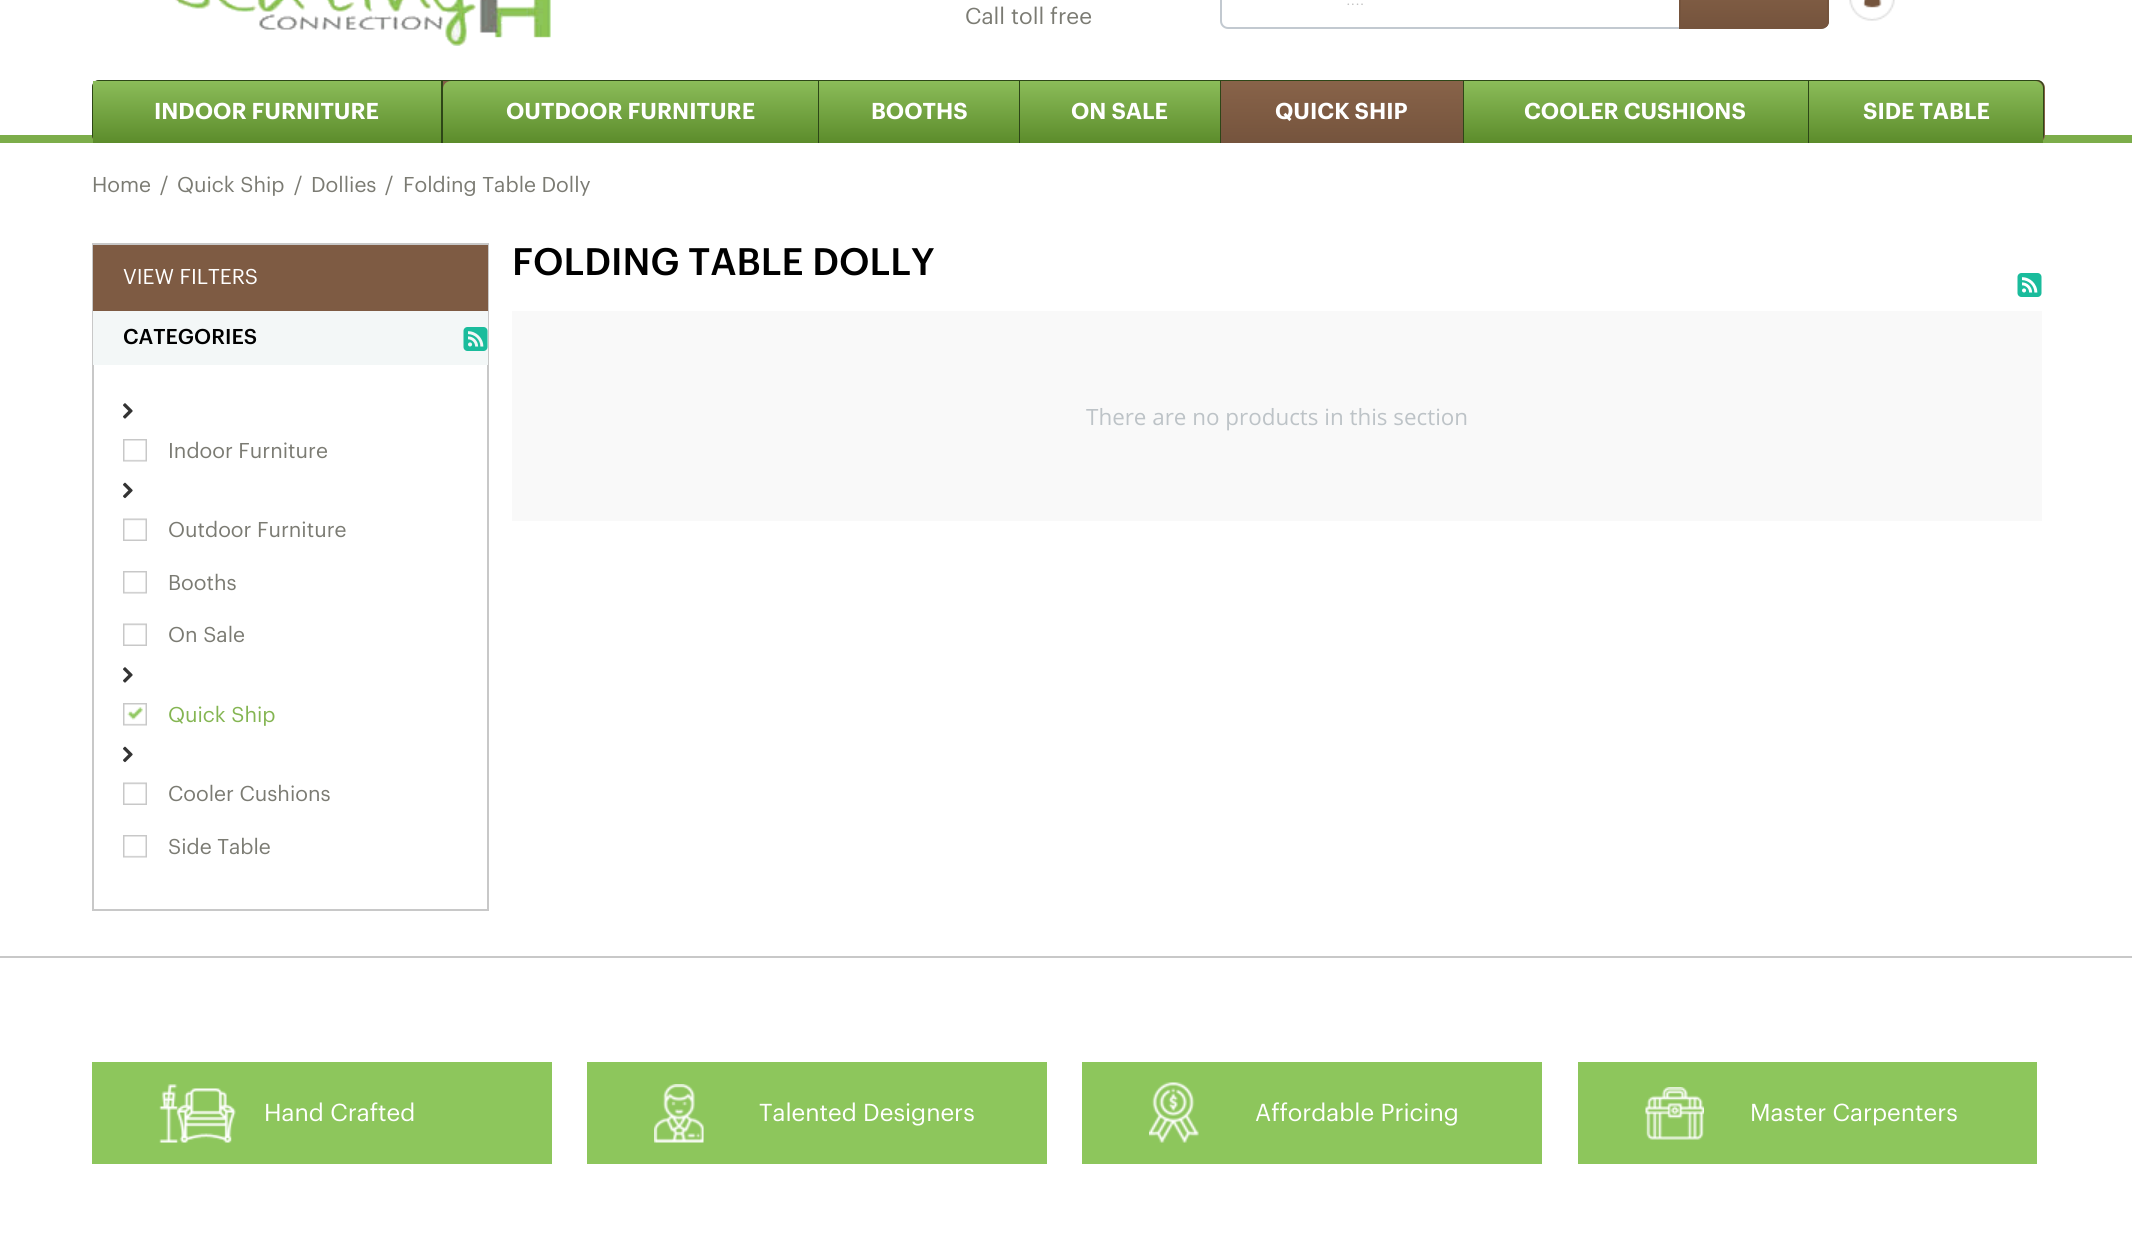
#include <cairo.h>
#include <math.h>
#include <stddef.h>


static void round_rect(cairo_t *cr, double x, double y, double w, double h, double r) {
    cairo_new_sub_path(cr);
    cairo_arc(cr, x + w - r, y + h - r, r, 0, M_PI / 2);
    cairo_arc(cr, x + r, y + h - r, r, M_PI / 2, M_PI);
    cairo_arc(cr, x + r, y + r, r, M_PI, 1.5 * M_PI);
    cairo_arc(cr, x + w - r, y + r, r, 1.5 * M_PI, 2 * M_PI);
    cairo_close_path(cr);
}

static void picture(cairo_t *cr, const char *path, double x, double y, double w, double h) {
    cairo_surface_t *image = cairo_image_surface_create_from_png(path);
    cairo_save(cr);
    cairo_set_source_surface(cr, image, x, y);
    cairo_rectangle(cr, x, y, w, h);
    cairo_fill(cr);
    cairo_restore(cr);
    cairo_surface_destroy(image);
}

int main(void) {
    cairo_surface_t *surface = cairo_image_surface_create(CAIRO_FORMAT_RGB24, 2132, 1234);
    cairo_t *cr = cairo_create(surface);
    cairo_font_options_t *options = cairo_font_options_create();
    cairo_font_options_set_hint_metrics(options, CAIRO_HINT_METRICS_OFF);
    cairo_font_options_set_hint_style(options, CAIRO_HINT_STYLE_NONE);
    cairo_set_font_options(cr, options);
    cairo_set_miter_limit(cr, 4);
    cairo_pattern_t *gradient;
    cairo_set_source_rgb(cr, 1, 1, 1);
    cairo_paint(cr);
    picture(cr, "img1.png", 175, 0, 376, 46);
    round_rect(cr, 1221, -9, 607, 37, 7);
    cairo_set_source_rgb(cr, 0.761, 0.788, 0.816);
    cairo_stroke(cr);
    cairo_select_font_face(cr, "Graphik Light", CAIRO_FONT_SLANT_NORMAL, CAIRO_FONT_WEIGHT_NORMAL);
    cairo_set_font_size(cr, 20);
    cairo_set_source_rgb(cr, 0.757, 0.757, 0.757);
    cairo_move_to(cr, 1346, 5);
    cairo_show_text(cr, "....");
    cairo_save(cr);
    cairo_new_path(cr);
    cairo_move_to(cr, 1679, -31);
    cairo_line_to(cr, 1821, -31);
    cairo_curve_to(cr, 1825.5, -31, 1829, -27.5, 1829, -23);
    cairo_line_to(cr, 1829, 21);
    cairo_curve_to(cr, 1829, 25.5, 1825.5, 29, 1821, 29);
    cairo_line_to(cr, 1679, 29);
    cairo_close_path(cr);
    cairo_clip(cr);
    gradient = cairo_pattern_create_linear(1754, -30, 1754, 27);
    cairo_pattern_add_color_stop_rgba(gradient, 0, 0.533, 0.388, 0.286, 1);
    cairo_pattern_add_color_stop_rgba(gradient, 1, 0.459, 0.329, 0.239, 1);
    cairo_set_source(cr, gradient);
    cairo_pattern_destroy(gradient);
    cairo_rectangle(cr, 1681, 0, 148, 27);
    cairo_fill(cr);
    cairo_restore(cr);
    cairo_new_path(cr);
    cairo_move_to(cr, 1680, -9);
    cairo_line_to(cr, 1821, -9);
    cairo_curve_to(cr, 1825, -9, 1828, -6, 1828, -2);
    cairo_line_to(cr, 1828, 21);
    cairo_curve_to(cr, 1828, 25, 1825, 28, 1821, 28);
    cairo_line_to(cr, 1680, 28);
    cairo_close_path(cr);
    cairo_set_source_rgb(cr, 0.459, 0.329, 0.239);
    cairo_stroke(cr);
    picture(cr, "img2.png", 1849, 0, 46, 21);
    cairo_select_font_face(cr, "Graphik", CAIRO_FONT_SLANT_NORMAL, CAIRO_FONT_WEIGHT_NORMAL);
    cairo_set_font_size(cr, 22.5);
    cairo_set_source_rgb(cr, 0.482, 0.482, 0.451);
    cairo_move_to(cr, 965, 24);
    cairo_show_text(cr, "Call toll free");
    cairo_set_source_rgb(cr, 0.486, 0.678, 0.29);
    cairo_rectangle(cr, 0, 135, 2132, 8);
    cairo_fill(cr);
    cairo_set_source_rgb(cr, 0.514, 0.376, 0.275);
    round_rect(cr, 92, 80, 1953, 63, 8);
    cairo_fill(cr);
    cairo_set_source_rgb(cr, 0.176, 0.275, 0.09);
    cairo_set_fill_rule(cr, CAIRO_FILL_RULE_EVEN_ODD);
    cairo_new_path(cr);
    cairo_move_to(cr, 99, 80);
    cairo_line_to(cr, 2037, 80);
    cairo_curve_to(cr, 2041, 80, 2044, 83, 2044, 87);
    cairo_line_to(cr, 2044, 135);
    cairo_curve_to(cr, 2044, 139, 2041, 142, 2037, 142);
    cairo_line_to(cr, 99, 142);
    cairo_curve_to(cr, 95, 142, 92, 139, 92, 135);
    cairo_line_to(cr, 92, 87);
    cairo_curve_to(cr, 92, 83, 95, 80, 99, 80);
    cairo_close_path(cr);
    cairo_move_to(cr, 99, 81);
    cairo_line_to(cr, 2037, 81);
    cairo_curve_to(cr, 2040, 81, 2043, 84, 2043, 87);
    cairo_line_to(cr, 2043, 135);
    cairo_curve_to(cr, 2043, 139, 2040, 142, 2037, 142);
    cairo_line_to(cr, 99, 142);
    cairo_curve_to(cr, 96, 142, 93, 139, 93, 135);
    cairo_line_to(cr, 93, 87);
    cairo_curve_to(cr, 93, 84, 96, 81, 99, 81);
    cairo_close_path(cr);
    cairo_fill(cr);
    gradient = cairo_pattern_create_linear(267, 81, 267, 143);
    cairo_pattern_add_color_stop_rgba(gradient, 0, 0.545, 0.737, 0.349, 1);
    cairo_pattern_add_color_stop_rgba(gradient, 1, 0.361, 0.549, 0.169, 1);
    cairo_set_source(cr, gradient);
    cairo_pattern_destroy(gradient);
    cairo_rectangle(cr, 93, 81, 348, 62);
    cairo_fill(cr);
    cairo_set_source_rgb(cr, 0.176, 0.275, 0.09);
    cairo_rectangle(cr, 441, 81, 2, 62);
    cairo_fill(cr);
    cairo_select_font_face(cr, "Graphik SemiBold", CAIRO_FONT_SLANT_NORMAL, CAIRO_FONT_WEIGHT_NORMAL);
    cairo_set_source_rgb(cr, 1, 1, 1);
    cairo_move_to(cr, 154, 119);
    cairo_show_text(cr, "INDOOR FURNITURE");
    gradient = cairo_pattern_create_linear(630, 81, 630, 143);
    cairo_pattern_add_color_stop_rgba(gradient, 0, 0.545, 0.737, 0.349, 1);
    cairo_pattern_add_color_stop_rgba(gradient, 1, 0.361, 0.549, 0.169, 1);
    cairo_set_source(cr, gradient);
    cairo_pattern_destroy(gradient);
    cairo_new_path(cr);
    cairo_move_to(cr, 451, 81);
    cairo_line_to(cr, 819, 81);
    cairo_line_to(cr, 819, 143);
    cairo_line_to(cr, 443, 143);
    cairo_line_to(cr, 443, 89);
    cairo_curve_to(cr, 443, 84.5, 446.5, 81, 451, 81);
    cairo_close_path(cr);
    cairo_fill(cr);
    cairo_set_source_rgb(cr, 0.176, 0.275, 0.09);
    cairo_rectangle(cr, 818, 81, 1, 62);
    cairo_fill(cr);
    cairo_set_source_rgb(cr, 1, 1, 1);
    cairo_move_to(cr, 506, 119);
    cairo_show_text(cr, "OUTDOOR FURNITURE");
    gradient = cairo_pattern_create_linear(919, 81, 919, 143);
    cairo_pattern_add_color_stop_rgba(gradient, 0, 0.545, 0.737, 0.349, 1);
    cairo_pattern_add_color_stop_rgba(gradient, 1, 0.361, 0.549, 0.169, 1);
    cairo_set_source(cr, gradient);
    cairo_pattern_destroy(gradient);
    cairo_rectangle(cr, 819, 81, 200, 62);
    cairo_fill(cr);
    cairo_set_source_rgb(cr, 0.176, 0.275, 0.09);
    cairo_rectangle(cr, 1019, 81, 1, 62);
    cairo_fill(cr);
    cairo_set_source_rgb(cr, 1, 1, 1);
    cairo_move_to(cr, 871, 119);
    cairo_show_text(cr, "BOOTHS");
    gradient = cairo_pattern_create_linear(1120, 81, 1120, 143);
    cairo_pattern_add_color_stop_rgba(gradient, 0, 0.545, 0.737, 0.349, 1);
    cairo_pattern_add_color_stop_rgba(gradient, 1, 0.361, 0.549, 0.169, 1);
    cairo_set_source(cr, gradient);
    cairo_pattern_destroy(gradient);
    cairo_rectangle(cr, 1020, 81, 200, 62);
    cairo_fill(cr);
    cairo_set_source_rgb(cr, 0.176, 0.275, 0.09);
    cairo_rectangle(cr, 1220, 81, 1, 62);
    cairo_fill(cr);
    cairo_set_source_rgb(cr, 1, 1, 1);
    cairo_move_to(cr, 1071, 119);
    cairo_show_text(cr, "ON SALE");
    gradient = cairo_pattern_create_linear(1342, 81, 1342, 143);
    cairo_pattern_add_color_stop_rgba(gradient, 0, 0.533, 0.388, 0.286, 1);
    cairo_pattern_add_color_stop_rgba(gradient, 1, 0.459, 0.329, 0.239, 1);
    cairo_set_source(cr, gradient);
    cairo_pattern_destroy(gradient);
    cairo_rectangle(cr, 1221, 81, 242, 62);
    cairo_fill(cr);
    cairo_set_source_rgb(cr, 0.176, 0.275, 0.09);
    cairo_rectangle(cr, 1463, 81, 1, 62);
    cairo_fill(cr);
    cairo_set_source_rgb(cr, 1, 1, 1);
    cairo_move_to(cr, 1275, 119);
    cairo_show_text(cr, "QUICK SHIP");
    gradient = cairo_pattern_create_linear(1636, 81, 1636, 143);
    cairo_pattern_add_color_stop_rgba(gradient, 0, 0.545, 0.737, 0.349, 1);
    cairo_pattern_add_color_stop_rgba(gradient, 1, 0.361, 0.549, 0.169, 1);
    cairo_set_source(cr, gradient);
    cairo_pattern_destroy(gradient);
    cairo_rectangle(cr, 1464, 81, 344, 62);
    cairo_fill(cr);
    cairo_set_source_rgb(cr, 0.176, 0.275, 0.09);
    cairo_rectangle(cr, 1808, 81, 1, 62);
    cairo_fill(cr);
    cairo_set_source_rgb(cr, 1, 1, 1);
    cairo_move_to(cr, 1524, 119);
    cairo_show_text(cr, "COOLER CUSHIONS");
    gradient = cairo_pattern_create_linear(1926, 81, 1926, 143);
    cairo_pattern_add_color_stop_rgba(gradient, 0, 0.545, 0.737, 0.349, 1);
    cairo_pattern_add_color_stop_rgba(gradient, 1, 0.361, 0.549, 0.169, 1);
    cairo_set_source(cr, gradient);
    cairo_pattern_destroy(gradient);
    cairo_new_path(cr);
    cairo_move_to(cr, 1809, 81);
    cairo_line_to(cr, 2035, 81);
    cairo_curve_to(cr, 2039.5, 81, 2043, 84.5, 2043, 89);
    cairo_line_to(cr, 2043, 143);
    cairo_line_to(cr, 1809, 143);
    cairo_close_path(cr);
    cairo_fill(cr);
    cairo_set_source_rgb(cr, 1, 1, 1);
    cairo_move_to(cr, 1863, 119);
    cairo_show_text(cr, "SIDE TABLE");
    cairo_select_font_face(cr, "Graphik", CAIRO_FONT_SLANT_NORMAL, CAIRO_FONT_WEIGHT_NORMAL);
    cairo_set_font_size(cr, 21);
    cairo_set_source_rgb(cr, 0.482, 0.482, 0.451);
    cairo_move_to(cr, 92, 192);
    cairo_show_text(cr, "Home");
    cairo_move_to(cr, 160, 192);
    cairo_show_text(cr, "/");
    cairo_move_to(cr, 177, 192);
    cairo_show_text(cr, "Quick Ship");
    cairo_move_to(cr, 294, 192);
    cairo_show_text(cr, "/");
    cairo_move_to(cr, 311, 192);
    cairo_show_text(cr, "Dollies");
    cairo_move_to(cr, 385, 192);
    cairo_show_text(cr, "/");
    cairo_move_to(cr, 403, 192);
    cairo_show_text(cr, "Folding Table Dolly");
    cairo_rectangle(cr, 93, 244, 395, 666);
    cairo_set_source_rgb(cr, 0.784, 0.784, 0.784);
    cairo_stroke(cr);
    cairo_set_source_rgb(cr, 0.494, 0.357, 0.263);
    cairo_rectangle(cr, 93, 245, 395, 66);
    cairo_fill(cr);
    cairo_set_source_rgb(cr, 1, 1, 1);
    cairo_move_to(cr, 123, 284);
    cairo_show_text(cr, "VIEW FILTERS");
    cairo_set_source_rgb(cr, 0.953, 0.965, 0.965);
    cairo_rectangle(cr, 93, 311, 395, 54);
    cairo_fill(cr);
    cairo_select_font_face(cr, "Graphik Medium", CAIRO_FONT_SLANT_NORMAL, CAIRO_FONT_WEIGHT_NORMAL);
    cairo_set_source_rgb(cr, 0, 0, 0);
    cairo_move_to(cr, 123, 344);
    cairo_show_text(cr, "CATEGORIES");
    picture(cr, "img3.png", 463, 327, 25, 24);
    picture(cr, "img4.png", 123, 403, 10, 16);
    picture(cr, "img5.png", 123, 439, 24, 23);
    cairo_select_font_face(cr, "Graphik", CAIRO_FONT_SLANT_NORMAL, CAIRO_FONT_WEIGHT_NORMAL);
    cairo_set_source_rgb(cr, 0.482, 0.482, 0.451);
    cairo_move_to(cr, 168, 458);
    cairo_show_text(cr, "Indoor Furniture");
    picture(cr, "img6.png", 123, 482, 10, 17);
    picture(cr, "img7.png", 123, 518, 24, 23);
    cairo_move_to(cr, 168, 537);
    cairo_show_text(cr, "Outdoor Furniture");
    picture(cr, "img5.png", 123, 571, 24, 23);
    cairo_move_to(cr, 168, 590);
    cairo_show_text(cr, "Booths");
    picture(cr, "img7.png", 123, 623, 24, 23);
    cairo_move_to(cr, 168, 642);
    cairo_show_text(cr, "On Sale");
    picture(cr, "img4.png", 123, 667, 10, 16);
    picture(cr, "img8.png", 123, 703, 24, 23);
    cairo_set_source_rgb(cr, 0.518, 0.71, 0.322);
    cairo_move_to(cr, 168, 722);
    cairo_show_text(cr, "Quick Ship");
    picture(cr, "img6.png", 123, 746, 10, 17);
    picture(cr, "img7.png", 123, 782, 24, 23);
    cairo_set_source_rgb(cr, 0.482, 0.482, 0.451);
    cairo_move_to(cr, 168, 801);
    cairo_show_text(cr, "Cooler Cushions");
    picture(cr, "img5.png", 123, 835, 24, 23);
    cairo_move_to(cr, 168, 854);
    cairo_show_text(cr, "Side Table");
    cairo_select_font_face(cr, "Graphik Medium", CAIRO_FONT_SLANT_NORMAL, CAIRO_FONT_WEIGHT_NORMAL);
    cairo_set_font_size(cr, 37.5);
    cairo_set_source_rgb(cr, 0, 0, 0);
    cairo_move_to(cr, 512, 275);
    cairo_show_text(cr, "FOLDING TABLE DOLLY");
    picture(cr, "img9.png", 2017, 273, 25, 24);
    cairo_set_source_rgb(cr, 0.973, 0.976, 0.976);
    cairo_rectangle(cr, 512, 311, 1530, 210);
    cairo_fill(cr);
    cairo_select_font_face(cr, "Open Sans", CAIRO_FONT_SLANT_NORMAL, CAIRO_FONT_WEIGHT_NORMAL);
    cairo_set_font_size(cr, 22.4);
    cairo_set_source_rgb(cr, 0.741, 0.765, 0.78);
    cairo_move_to(cr, 1086, 425);
    cairo_show_text(cr, "There are no products in this section");
    cairo_set_source_rgb(cr, 0.784, 0.784, 0.784);
    cairo_rectangle(cr, 0, 956, 2132, 2);
    cairo_fill(cr);
    cairo_set_source_rgb(cr, 0.553, 0.776, 0.361);
    cairo_rectangle(cr, 92, 1062, 460, 102);
    cairo_fill(cr);
    picture(cr, "img10.png", 159, 1084, 77, 59);
    cairo_select_font_face(cr, "Graphik", CAIRO_FONT_SLANT_NORMAL, CAIRO_FONT_WEIGHT_NORMAL);
    cairo_set_font_size(cr, 24);
    cairo_set_source_rgb(cr, 1, 1, 1);
    cairo_move_to(cr, 264, 1121);
    cairo_show_text(cr, "Hand Crafted");
    cairo_set_source_rgb(cr, 0.553, 0.776, 0.361);
    cairo_rectangle(cr, 587, 1062, 460, 102);
    cairo_fill(cr);
    picture(cr, "img11.png", 654, 1084, 50, 59);
    cairo_set_source_rgb(cr, 1, 1, 1);
    cairo_move_to(cr, 759, 1121);
    cairo_show_text(cr, "Talented Designers");
    cairo_set_source_rgb(cr, 0.553, 0.776, 0.361);
    cairo_rectangle(cr, 1082, 1062, 460, 102);
    cairo_fill(cr);
    picture(cr, "img12.png", 1149, 1082, 50, 61);
    cairo_set_source_rgb(cr, 1, 1, 1);
    cairo_move_to(cr, 1255, 1121);
    cairo_show_text(cr, "Affordable Pricing");
    cairo_set_source_rgb(cr, 0.553, 0.776, 0.361);
    cairo_rectangle(cr, 1578, 1062, 459, 102);
    cairo_fill(cr);
    picture(cr, "img13.png", 1645, 1087, 59, 53);
    cairo_set_source_rgb(cr, 1, 1, 1);
    cairo_move_to(cr, 1750, 1121);
    cairo_show_text(cr, "Master Carpenters");
    cairo_surface_write_to_png(surface, "page.png");
    cairo_font_options_destroy(options);
    cairo_destroy(cr);
    cairo_surface_destroy(surface);
    return 0;
}
